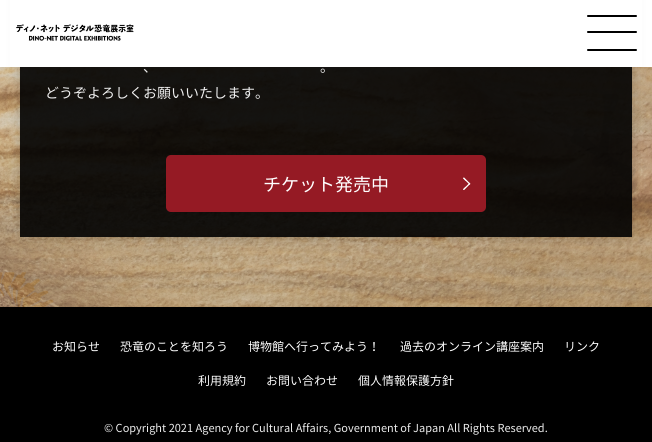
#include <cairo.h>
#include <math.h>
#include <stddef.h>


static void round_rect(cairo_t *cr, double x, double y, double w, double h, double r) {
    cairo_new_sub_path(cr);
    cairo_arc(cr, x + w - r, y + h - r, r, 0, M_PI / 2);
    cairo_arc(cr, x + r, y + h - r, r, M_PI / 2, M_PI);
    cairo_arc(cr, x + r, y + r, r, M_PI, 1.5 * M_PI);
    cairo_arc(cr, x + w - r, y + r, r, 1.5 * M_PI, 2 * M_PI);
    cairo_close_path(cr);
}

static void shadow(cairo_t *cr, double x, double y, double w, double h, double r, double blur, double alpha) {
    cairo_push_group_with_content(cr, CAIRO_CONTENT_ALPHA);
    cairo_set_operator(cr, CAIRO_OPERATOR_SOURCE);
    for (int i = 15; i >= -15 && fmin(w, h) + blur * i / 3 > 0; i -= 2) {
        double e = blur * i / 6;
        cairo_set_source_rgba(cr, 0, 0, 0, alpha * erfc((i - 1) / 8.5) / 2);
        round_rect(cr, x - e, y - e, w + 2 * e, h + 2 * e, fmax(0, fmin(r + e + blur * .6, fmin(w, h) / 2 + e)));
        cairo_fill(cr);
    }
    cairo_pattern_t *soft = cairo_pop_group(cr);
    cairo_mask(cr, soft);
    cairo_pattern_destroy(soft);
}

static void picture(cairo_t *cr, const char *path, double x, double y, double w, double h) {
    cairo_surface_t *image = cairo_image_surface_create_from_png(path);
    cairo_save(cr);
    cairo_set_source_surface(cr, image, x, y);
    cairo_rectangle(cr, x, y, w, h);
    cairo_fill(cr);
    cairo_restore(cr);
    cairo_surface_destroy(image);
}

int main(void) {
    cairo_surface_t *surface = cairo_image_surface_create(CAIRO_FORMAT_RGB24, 652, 442);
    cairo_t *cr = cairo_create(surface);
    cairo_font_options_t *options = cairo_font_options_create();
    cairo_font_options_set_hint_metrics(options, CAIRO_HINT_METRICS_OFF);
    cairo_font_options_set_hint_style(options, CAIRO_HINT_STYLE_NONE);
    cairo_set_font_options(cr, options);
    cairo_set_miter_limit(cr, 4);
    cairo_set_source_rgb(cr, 1, 1, 1);
    cairo_paint(cr);
    picture(cr, "img1.png", 0, 67, 652, 240);
    cairo_save(cr);
    cairo_set_fill_rule(cr, CAIRO_FILL_RULE_EVEN_ODD);
    cairo_new_path(cr);
    cairo_move_to(cr, 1, 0);
    cairo_line_to(cr, 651, 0);
    cairo_line_to(cr, 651, 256);
    cairo_line_to(cr, 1, 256);
    cairo_close_path(cr);
    cairo_move_to(cr, 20, -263);
    cairo_line_to(cr, 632, -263);
    cairo_line_to(cr, 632, 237);
    cairo_line_to(cr, 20, 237);
    cairo_close_path(cr);
    cairo_clip(cr);
    cairo_set_source_rgb(cr, 0, 0, 0);
    shadow(cr, 26, -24, 600, 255, 0, 8, 0.5);
    cairo_restore(cr);
    cairo_set_source_rgb(cr, 1, 1, 1);
    cairo_rectangle(cr, 10, 0, 632, 67);
    cairo_fill(cr);
    picture(cr, "img2.png", 16, 24, 118, 17);
    cairo_set_source_rgb(cr, 0, 0, 0);
    round_rect(cr, 587, 15, 50, 2, 1);
    cairo_fill(cr);
    round_rect(cr, 587, 31, 50, 2, 1);
    cairo_fill(cr);
    round_rect(cr, 587, 49, 50, 2, 1);
    cairo_fill(cr);
    cairo_set_source_rgba(cr, 0, 0, 0, 0.9);
    cairo_rectangle(cr, 20, 67, 612, 170);
    cairo_fill(cr);
    cairo_select_font_face(cr, "Noto Sans JP", CAIRO_FONT_SLANT_NORMAL, CAIRO_FONT_WEIGHT_NORMAL);
    cairo_set_font_size(cr, 14);
    cairo_set_source_rgb(cr, 0.933, 0.933, 0.933);
    cairo_move_to(cr, 143, 72);
    cairo_show_text(cr, "、");
    cairo_move_to(cr, 320, 72);
    cairo_show_text(cr, "。");
    cairo_move_to(cr, 45, 98);
    cairo_show_text(cr, "どうぞよろしくお願いいたします。");
    cairo_set_source_rgb(cr, 0.584, 0.102, 0.141);
    round_rect(cr, 166, 155, 320, 57, 5);
    cairo_fill(cr);
    cairo_set_font_size(cr, 18);
    cairo_set_source_rgb(cr, 1, 1, 1);
    cairo_move_to(cr, 263, 191);
    cairo_show_text(cr, "チケット発売中");
    picture(cr, "img3.png", 463, 177, 8, 13);
    cairo_set_source_rgb(cr, 0, 0, 0);
    cairo_rectangle(cr, 0, 307, 652, 135);
    cairo_fill(cr);
    cairo_set_font_size(cr, 12);
    cairo_set_source_rgb(cr, 1, 1, 1);
    cairo_move_to(cr, 52, 351);
    cairo_show_text(cr, "お知らせ");
    cairo_move_to(cr, 120, 351);
    cairo_show_text(cr, "恐竜のことを知ろう");
    cairo_move_to(cr, 248, 351);
    cairo_show_text(cr, "博物館へ行ってみよう！");
    cairo_move_to(cr, 400, 351);
    cairo_show_text(cr, "過去のオンライン講座案内");
    cairo_move_to(cr, 564, 351);
    cairo_show_text(cr, "リンク");
    cairo_move_to(cr, 198, 385);
    cairo_show_text(cr, "利用規約");
    cairo_move_to(cr, 266, 385);
    cairo_show_text(cr, "お問い合わせ");
    cairo_move_to(cr, 358, 385);
    cairo_show_text(cr, "個人情報保護方針");
    cairo_set_font_size(cr, 11);
    cairo_set_source_rgb(cr, 0.933, 0.933, 0.933);
    cairo_move_to(cr, 104, 432);
    cairo_show_text(cr, "© Copyright 2021 Agency for Cultural Affairs, Government of Japan All Rights Reserved.");
    cairo_surface_write_to_png(surface, "page.png");
    cairo_font_options_destroy(options);
    cairo_destroy(cr);
    cairo_surface_destroy(surface);
    return 0;
}
